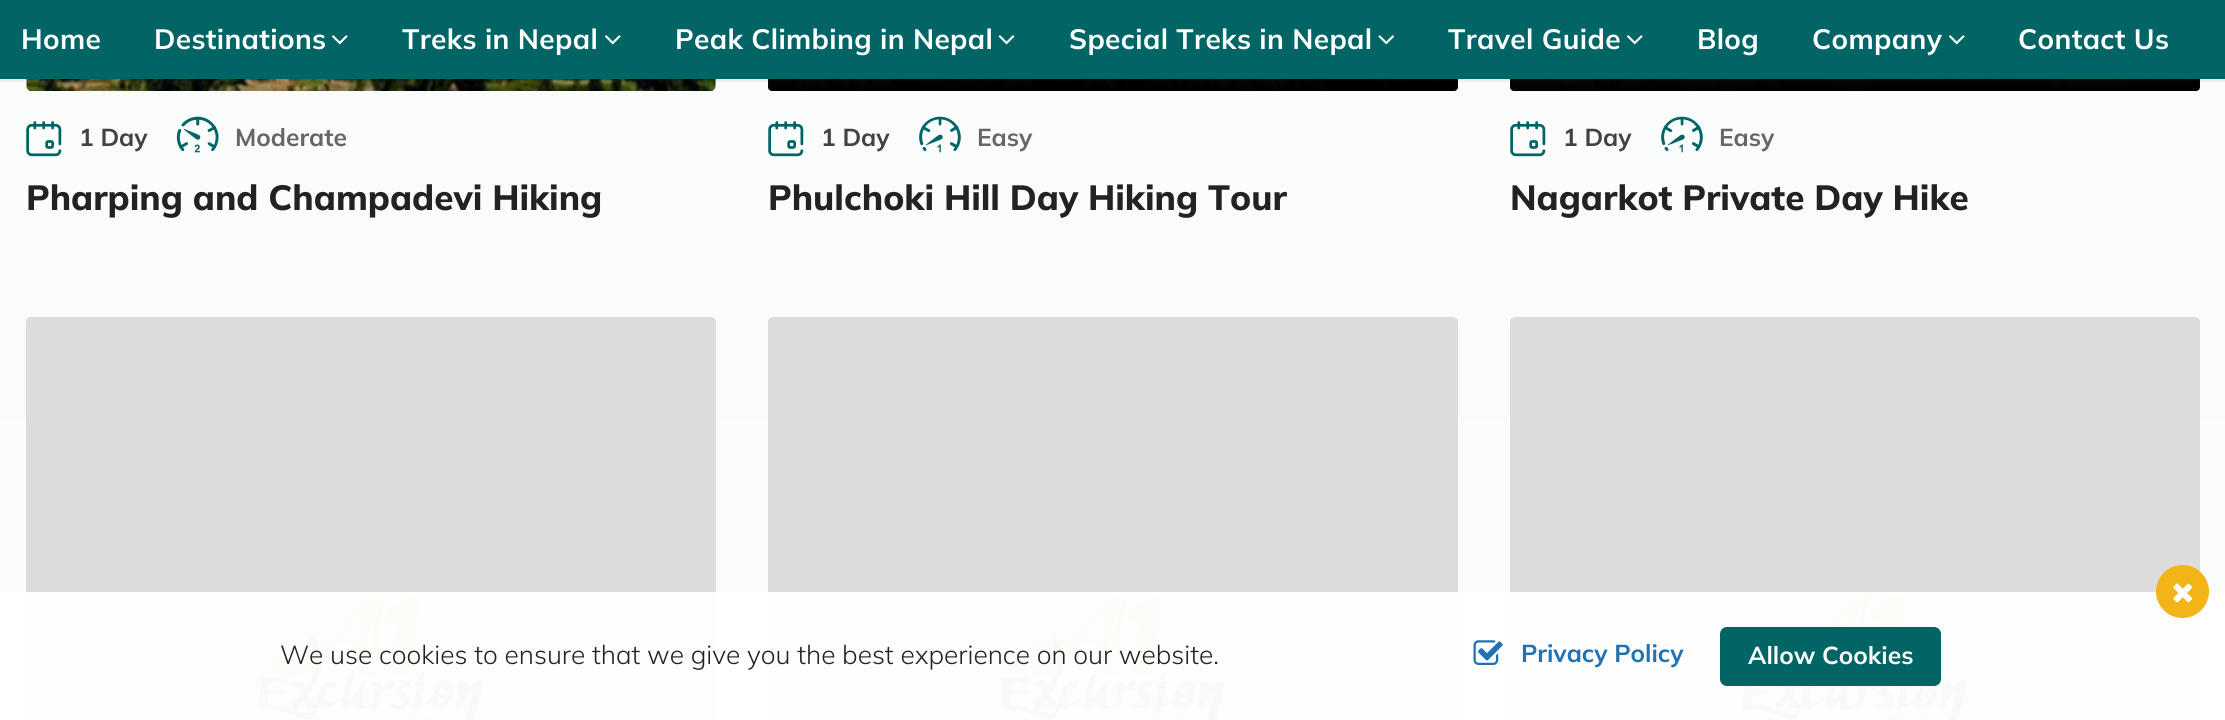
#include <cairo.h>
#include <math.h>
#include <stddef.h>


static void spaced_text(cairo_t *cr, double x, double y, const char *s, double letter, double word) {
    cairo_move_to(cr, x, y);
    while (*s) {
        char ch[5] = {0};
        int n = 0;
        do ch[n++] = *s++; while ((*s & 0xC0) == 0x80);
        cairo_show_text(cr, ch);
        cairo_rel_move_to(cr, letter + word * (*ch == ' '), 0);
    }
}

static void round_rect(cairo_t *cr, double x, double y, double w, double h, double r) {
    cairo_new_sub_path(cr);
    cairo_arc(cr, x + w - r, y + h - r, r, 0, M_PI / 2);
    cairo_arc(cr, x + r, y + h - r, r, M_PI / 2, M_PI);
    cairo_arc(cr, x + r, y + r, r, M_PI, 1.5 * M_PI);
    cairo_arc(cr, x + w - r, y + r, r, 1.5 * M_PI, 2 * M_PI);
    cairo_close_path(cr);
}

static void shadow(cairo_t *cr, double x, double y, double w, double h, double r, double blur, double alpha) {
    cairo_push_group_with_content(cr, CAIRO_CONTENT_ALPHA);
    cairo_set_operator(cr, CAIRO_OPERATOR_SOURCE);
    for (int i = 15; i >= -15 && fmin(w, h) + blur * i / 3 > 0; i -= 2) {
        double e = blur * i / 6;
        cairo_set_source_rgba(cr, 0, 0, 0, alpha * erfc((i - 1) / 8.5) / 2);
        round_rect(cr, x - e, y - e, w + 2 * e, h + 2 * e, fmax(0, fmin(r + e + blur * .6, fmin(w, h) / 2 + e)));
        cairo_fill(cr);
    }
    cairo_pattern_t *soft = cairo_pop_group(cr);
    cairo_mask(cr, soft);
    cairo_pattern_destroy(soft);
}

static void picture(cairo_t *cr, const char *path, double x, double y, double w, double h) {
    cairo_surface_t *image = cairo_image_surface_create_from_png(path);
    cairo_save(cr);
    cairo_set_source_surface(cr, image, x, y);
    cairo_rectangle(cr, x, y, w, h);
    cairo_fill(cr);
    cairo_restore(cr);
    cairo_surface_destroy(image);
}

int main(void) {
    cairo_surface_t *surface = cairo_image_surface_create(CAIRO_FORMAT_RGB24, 2225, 720);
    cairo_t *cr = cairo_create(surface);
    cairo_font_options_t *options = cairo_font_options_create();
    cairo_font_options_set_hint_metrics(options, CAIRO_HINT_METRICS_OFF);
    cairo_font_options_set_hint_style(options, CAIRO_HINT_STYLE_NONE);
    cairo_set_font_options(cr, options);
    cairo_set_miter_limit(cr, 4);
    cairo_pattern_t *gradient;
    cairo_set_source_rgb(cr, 1, 1, 1);
    cairo_paint(cr);
    gradient = cairo_pattern_create_linear(1113, 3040, 1113, -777);
    cairo_pattern_add_color_stop_rgba(gradient, 0, 1, 1, 1, 1);
    cairo_pattern_add_color_stop_rgba(gradient, 1, 0.976, 0.98, 0.98, 1);
    cairo_set_source(cr, gradient);
    cairo_pattern_destroy(gradient);
    cairo_rectangle(cr, 0, 79, 2225, 513);
    cairo_fill(cr);
    cairo_set_source_rgb(cr, 0.863, 0.863, 0.863);
    round_rect(cr, 26, -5, 690, 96, 5);
    cairo_fill(cr);
    picture(cr, "img4.png", 26, 79, 690, 12);
    round_rect(cr, 768, -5, 690, 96, 5);
    cairo_fill(cr);
    picture(cr, "img7.png", 768, 79, 690, 12);
    gradient = cairo_pattern_create_linear(1113, 91, 1113, -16);
    cairo_pattern_add_color_stop_rgba(gradient, 0, 0, 0, 0, 1);
    cairo_pattern_add_color_stop_rgba(gradient, 1, 0, 0, 0, 0);
    cairo_set_source(cr, gradient);
    cairo_pattern_destroy(gradient);
    round_rect(cr, 768, -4, 690, 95, 4);
    cairo_fill(cr);
    cairo_set_source_rgb(cr, 0.863, 0.863, 0.863);
    round_rect(cr, 1510, -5, 690, 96, 5);
    cairo_fill(cr);
    picture(cr, "img9.png", 1510, 79, 690, 12);
    gradient = cairo_pattern_create_linear(1855, 91, 1855, -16);
    cairo_pattern_add_color_stop_rgba(gradient, 0, 0, 0, 0, 1);
    cairo_pattern_add_color_stop_rgba(gradient, 1, 0, 0, 0, 0);
    cairo_set_source(cr, gradient);
    cairo_pattern_destroy(gradient);
    round_rect(cr, 1510, -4, 690, 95, 4);
    cairo_fill(cr);
    cairo_set_source_rgb(cr, 0, 0, 0);
    shadow(cr, 0, -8, 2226, 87, 0, 2.5, 0.2);
    cairo_set_source_rgb(cr, 0, 0.396, 0.392);
    cairo_rectangle(cr, 0, 0, 2225, 79);
    cairo_fill(cr);
    cairo_select_font_face(cr, "Mulish", CAIRO_FONT_SLANT_NORMAL, CAIRO_FONT_WEIGHT_BOLD);
    cairo_set_font_size(cr, 28);
    cairo_set_source_rgb(cr, 1, 1, 1);
    spaced_text(cr, 21, 49, "Home", 0.35, 0);
    spaced_text(cr, 154, 49, "Destinations", 0.35, 0);
    picture(cr, "img1.png", 332, 35, 16, 10);
    spaced_text(cr, 402, 49, "Treks in Nepal", 0.35, 0);
    picture(cr, "img1.png", 605, 35, 16, 10);
    spaced_text(cr, 675, 49, "Peak Climbing in Nepal", 0.35, 0);
    picture(cr, "img2.png", 998, 35, 17, 10);
    spaced_text(cr, 1069, 49, "Special Treks in Nepal", 0.35, 0);
    picture(cr, "img3.png", 1378, 35, 16, 10);
    spaced_text(cr, 1448, 49, "Travel Guide", 0.35, 0);
    picture(cr, "img1.png", 1627, 35, 16, 10);
    spaced_text(cr, 1697, 49, "Blog", 0.35, 0);
    spaced_text(cr, 1812, 49, "Company", 0.35, 0);
    picture(cr, "img1.png", 1949, 35, 16, 10);
    spaced_text(cr, 2018, 49, "Contact Us", 0.35, 0);
    picture(cr, "img5.png", 26, 121, 36, 36);
    cairo_set_font_size(cr, 24.5);
    cairo_set_source_rgb(cr, 0.259, 0.259, 0.259);
    cairo_move_to(cr, 79, 146);
    cairo_show_text(cr, "1 Day");
    picture(cr, "img6.png", 176, 116, 43, 37);
    cairo_set_source_rgb(cr, 0.4, 0.4, 0.4);
    cairo_move_to(cr, 235, 146);
    cairo_show_text(cr, "Moderate");
    cairo_select_font_face(cr, "Mulish ExtraBold", CAIRO_FONT_SLANT_NORMAL, CAIRO_FONT_WEIGHT_NORMAL);
    cairo_set_font_size(cr, 35);
    cairo_set_source_rgb(cr, 0.133, 0.133, 0.133);
    cairo_move_to(cr, 26, 210);
    cairo_show_text(cr, "Pharping and Champadevi Hiking");
    picture(cr, "img5.png", 768, 121, 36, 36);
    cairo_select_font_face(cr, "Mulish", CAIRO_FONT_SLANT_NORMAL, CAIRO_FONT_WEIGHT_BOLD);
    cairo_set_font_size(cr, 24.5);
    cairo_set_source_rgb(cr, 0.259, 0.259, 0.259);
    cairo_move_to(cr, 821, 146);
    cairo_show_text(cr, "1 Day");
    picture(cr, "img8.png", 919, 116, 42, 37);
    cairo_set_source_rgb(cr, 0.4, 0.4, 0.4);
    cairo_move_to(cr, 977, 146);
    cairo_show_text(cr, "Easy");
    cairo_select_font_face(cr, "Mulish ExtraBold", CAIRO_FONT_SLANT_NORMAL, CAIRO_FONT_WEIGHT_NORMAL);
    cairo_set_font_size(cr, 35);
    cairo_set_source_rgb(cr, 0.133, 0.133, 0.133);
    cairo_move_to(cr, 768, 210);
    cairo_show_text(cr, "Phulchoki Hill Day Hiking Tour");
    picture(cr, "img5.png", 1510, 121, 36, 36);
    cairo_select_font_face(cr, "Mulish", CAIRO_FONT_SLANT_NORMAL, CAIRO_FONT_WEIGHT_BOLD);
    cairo_set_font_size(cr, 24.5);
    cairo_set_source_rgb(cr, 0.259, 0.259, 0.259);
    cairo_move_to(cr, 1563, 146);
    cairo_show_text(cr, "1 Day");
    picture(cr, "img8.png", 1661, 116, 42, 37);
    cairo_set_source_rgb(cr, 0.4, 0.4, 0.4);
    cairo_move_to(cr, 1719, 146);
    cairo_show_text(cr, "Easy");
    cairo_select_font_face(cr, "Mulish ExtraBold", CAIRO_FONT_SLANT_NORMAL, CAIRO_FONT_WEIGHT_NORMAL);
    cairo_set_font_size(cr, 35);
    cairo_set_source_rgb(cr, 0.133, 0.133, 0.133);
    cairo_move_to(cr, 1510, 210);
    cairo_show_text(cr, "Nagarkot Private Day Hike");
    cairo_set_source_rgb(cr, 0.863, 0.863, 0.863);
    round_rect(cr, 26, 317, 690, 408, 5);
    cairo_fill(cr);
    cairo_set_source_rgb(cr, 0.992, 0.992, 0.992);
    cairo_rectangle(cr, 26, 592, 690, 128);
    cairo_fill(cr);
    picture(cr, "img10.png", 259, 593, 223, 127);
    cairo_set_source_rgb(cr, 0.863, 0.863, 0.863);
    round_rect(cr, 768, 317, 690, 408, 5);
    cairo_fill(cr);
    cairo_set_source_rgb(cr, 0.992, 0.992, 0.992);
    cairo_rectangle(cr, 768, 592, 690, 128);
    cairo_fill(cr);
    picture(cr, "img10.png", 1001, 593, 223, 127);
    cairo_set_source_rgb(cr, 0.863, 0.863, 0.863);
    round_rect(cr, 1510, 317, 690, 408, 5);
    cairo_fill(cr);
    cairo_set_source_rgb(cr, 0.992, 0.992, 0.992);
    cairo_rectangle(cr, 1510, 592, 690, 128);
    cairo_fill(cr);
    picture(cr, "img10.png", 1743, 593, 223, 127);
    cairo_set_source_rgb(cr, 0.953, 0.706, 0.094);
    cairo_arc(cr, 2182.5, 591.5, 26.5, 0, 2 * M_PI);
    cairo_fill(cr);
    picture(cr, "img11.png", 2173, 583, 19, 20);
    cairo_select_font_face(cr, "Mulish Light", CAIRO_FONT_SLANT_NORMAL, CAIRO_FONT_WEIGHT_NORMAL);
    cairo_set_font_size(cr, 26.25);
    cairo_set_source_rgb(cr, 0.133, 0.133, 0.133);
    cairo_move_to(cr, 280, 664);
    cairo_show_text(cr, "We use cookies to ensure that we give you the best experience on our website.");
    picture(cr, "img12.png", 1473, 640, 30, 25);
    cairo_select_font_face(cr, "Mulish", CAIRO_FONT_SLANT_NORMAL, CAIRO_FONT_WEIGHT_BOLD);
    cairo_set_font_size(cr, 24.5);
    cairo_set_source_rgb(cr, 0.122, 0.451, 0.702);
    cairo_move_to(cr, 1521, 662);
    cairo_show_text(cr, "Privacy Policy");
    cairo_set_source_rgb(cr, 0, 0.396, 0.392);
    round_rect(cr, 1721, 628, 219, 57, 6);
    cairo_fill_preserve(cr);
    cairo_stroke(cr);
    cairo_set_source_rgb(cr, 1, 1, 1);
    cairo_move_to(cr, 1748, 664);
    cairo_show_text(cr, "Allow Cookies");
    cairo_surface_write_to_png(surface, "page.png");
    cairo_font_options_destroy(options);
    cairo_destroy(cr);
    cairo_surface_destroy(surface);
    return 0;
}
